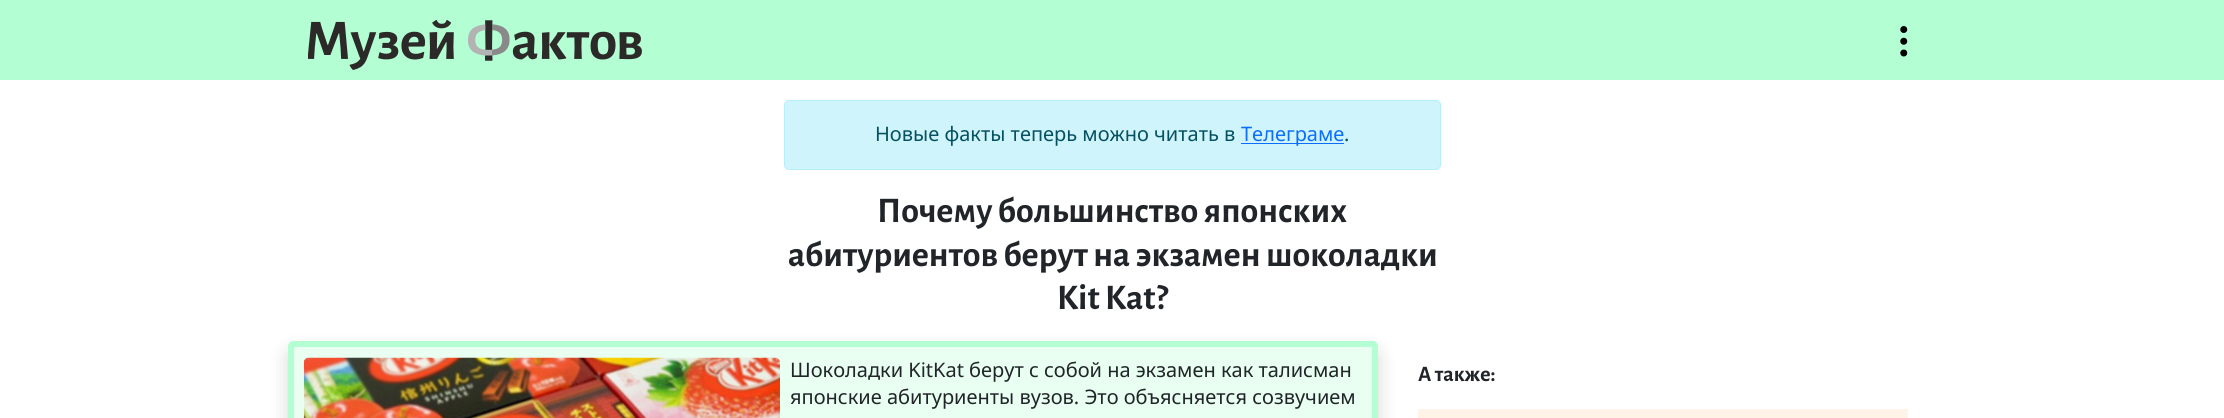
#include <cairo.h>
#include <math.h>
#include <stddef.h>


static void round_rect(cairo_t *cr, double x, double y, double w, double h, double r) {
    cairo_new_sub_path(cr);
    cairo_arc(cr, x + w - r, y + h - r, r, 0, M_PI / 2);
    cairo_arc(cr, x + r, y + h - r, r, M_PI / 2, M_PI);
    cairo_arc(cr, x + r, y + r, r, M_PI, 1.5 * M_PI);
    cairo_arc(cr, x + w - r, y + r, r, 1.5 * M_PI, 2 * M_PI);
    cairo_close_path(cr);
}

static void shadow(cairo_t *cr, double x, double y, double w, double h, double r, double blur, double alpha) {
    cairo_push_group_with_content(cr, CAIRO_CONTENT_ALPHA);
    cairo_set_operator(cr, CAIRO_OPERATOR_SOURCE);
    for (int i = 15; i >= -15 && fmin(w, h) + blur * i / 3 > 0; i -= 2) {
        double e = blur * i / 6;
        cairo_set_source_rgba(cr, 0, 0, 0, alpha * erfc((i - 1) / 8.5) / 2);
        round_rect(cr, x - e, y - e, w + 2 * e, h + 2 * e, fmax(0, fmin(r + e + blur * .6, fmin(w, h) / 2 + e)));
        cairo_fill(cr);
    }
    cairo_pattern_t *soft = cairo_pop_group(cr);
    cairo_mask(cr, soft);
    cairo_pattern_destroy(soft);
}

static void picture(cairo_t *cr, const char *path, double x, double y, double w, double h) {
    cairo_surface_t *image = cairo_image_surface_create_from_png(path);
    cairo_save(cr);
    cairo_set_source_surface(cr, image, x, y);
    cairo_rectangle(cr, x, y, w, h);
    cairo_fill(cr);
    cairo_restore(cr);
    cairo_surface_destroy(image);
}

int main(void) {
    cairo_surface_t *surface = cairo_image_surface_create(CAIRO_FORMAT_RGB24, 2224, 418);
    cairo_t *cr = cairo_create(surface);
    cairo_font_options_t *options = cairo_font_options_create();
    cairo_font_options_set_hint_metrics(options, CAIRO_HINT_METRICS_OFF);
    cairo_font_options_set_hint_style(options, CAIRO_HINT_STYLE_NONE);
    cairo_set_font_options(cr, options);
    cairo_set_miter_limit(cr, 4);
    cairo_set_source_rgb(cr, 1, 1, 1);
    cairo_paint(cr);
    cairo_set_source_rgb(cr, 0.702, 1, 0.827);
    cairo_rectangle(cr, 0, 0, 2224, 80);
    cairo_fill(cr);
    picture(cr, "img1.png", 308, 20, 334, 50);
    picture(cr, "img2.png", 1900, 26, 8, 31);
    cairo_set_source_rgb(cr, 0.812, 0.957, 0.988);
    round_rect(cr, 784.5, 100.5, 656, 69, 4.5);
    cairo_fill_preserve(cr);
    cairo_set_source_rgb(cr, 0.714, 0.937, 0.984);
    cairo_set_line_width(cr, 1);
    cairo_stroke(cr);
    cairo_select_font_face(cr, "Noto Sans", CAIRO_FONT_SLANT_NORMAL, CAIRO_FONT_WEIGHT_NORMAL);
    cairo_set_font_size(cr, 20);
    cairo_set_source_rgb(cr, 0.02, 0.318, 0.376);
    cairo_move_to(cr, 875, 141);
    cairo_show_text(cr, "Новые факты теперь можно читать в");
    cairo_set_source_rgb(cr, 0.051, 0.431, 0.992);
    cairo_rectangle(cr, 1241, 143, 103, 1);
    cairo_fill(cr);
    cairo_move_to(cr, 1241, 141);
    cairo_show_text(cr, "Телеграме");
    cairo_set_source_rgb(cr, 0.02, 0.318, 0.376);
    cairo_move_to(cr, 1344, 141);
    cairo_show_text(cr, ".");
    cairo_select_font_face(cr, "Alegreya Sans", CAIRO_FONT_SLANT_NORMAL, CAIRO_FONT_WEIGHT_BOLD);
    cairo_set_font_size(cr, 36);
    cairo_set_source_rgb(cr, 0.129, 0.145, 0.161);
    cairo_move_to(cr, 877, 222);
    cairo_show_text(cr, "Почему большинство японских");
    cairo_move_to(cr, 788, 266);
    cairo_show_text(cr, "абитуриентов берут на экзамен шоколадки");
    cairo_move_to(cr, 1057, 309);
    cairo_show_text(cr, "Kit Kat?");
    cairo_save(cr);
    cairo_set_fill_rule(cr, CAIRO_FILL_RULE_EVEN_ODD);
    cairo_new_path(cr);
    cairo_move_to(cr, 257, 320);
    cairo_line_to(cr, 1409, 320);
    cairo_line_to(cr, 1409, 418);
    cairo_line_to(cr, 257, 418);
    cairo_close_path(cr);
    cairo_move_to(cr, 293, 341);
    cairo_line_to(cr, 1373, 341);
    cairo_curve_to(cr, 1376, 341, 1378, 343, 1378, 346);
    cairo_line_to(cr, 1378, 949);
    cairo_curve_to(cr, 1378, 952, 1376, 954, 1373, 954);
    cairo_line_to(cr, 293, 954);
    cairo_curve_to(cr, 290, 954, 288, 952, 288, 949);
    cairo_line_to(cr, 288, 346);
    cairo_curve_to(cr, 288, 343, 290, 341, 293, 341);
    cairo_close_path(cr);
    cairo_clip(cr);
    cairo_set_source_rgb(cr, 0, 0, 0);
    shadow(cr, 288, 351, 1090, 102, 5, 10, 0.15);
    cairo_restore(cr);
    cairo_set_source_rgba(cr, 0.702, 1, 0.827, 0.3);
    round_rect(cr, 291, 344, 1084, 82, 2);
    cairo_fill_preserve(cr);
    cairo_set_source_rgb(cr, 0.702, 1, 0.827);
    cairo_set_line_width(cr, 6);
    cairo_stroke(cr);
    picture(cr, "img3.png", 303, 357, 477, 61);
    cairo_select_font_face(cr, "Noto Sans", CAIRO_FONT_SLANT_NORMAL, CAIRO_FONT_WEIGHT_NORMAL);
    cairo_set_font_size(cr, 20);
    cairo_set_source_rgb(cr, 0.129, 0.145, 0.161);
    cairo_move_to(cr, 790, 377);
    cairo_show_text(cr, "Шоколадки KitKat берут с собой на экзамен как талисман");
    cairo_move_to(cr, 790, 404);
    cairo_show_text(cr, "японские абитуриенты вузов. Это объясняется созвучием");
    cairo_select_font_face(cr, "Alegreya Sans", CAIRO_FONT_SLANT_NORMAL, CAIRO_FONT_WEIGHT_BOLD);
    cairo_set_font_size(cr, 22);
    cairo_move_to(cr, 1418, 381);
    cairo_show_text(cr, "А также:");
    cairo_set_source_rgb(cr, 1, 0.953, 0.91);
    cairo_rectangle(cr, 1418, 409, 490, 9);
    cairo_fill(cr);
    cairo_surface_write_to_png(surface, "page.png");
    cairo_font_options_destroy(options);
    cairo_destroy(cr);
    cairo_surface_destroy(surface);
    return 0;
}
